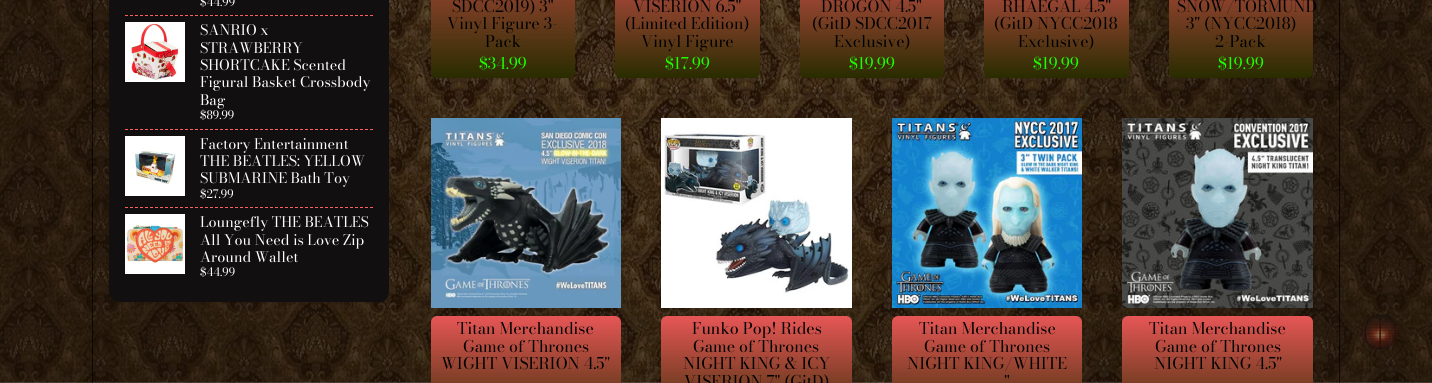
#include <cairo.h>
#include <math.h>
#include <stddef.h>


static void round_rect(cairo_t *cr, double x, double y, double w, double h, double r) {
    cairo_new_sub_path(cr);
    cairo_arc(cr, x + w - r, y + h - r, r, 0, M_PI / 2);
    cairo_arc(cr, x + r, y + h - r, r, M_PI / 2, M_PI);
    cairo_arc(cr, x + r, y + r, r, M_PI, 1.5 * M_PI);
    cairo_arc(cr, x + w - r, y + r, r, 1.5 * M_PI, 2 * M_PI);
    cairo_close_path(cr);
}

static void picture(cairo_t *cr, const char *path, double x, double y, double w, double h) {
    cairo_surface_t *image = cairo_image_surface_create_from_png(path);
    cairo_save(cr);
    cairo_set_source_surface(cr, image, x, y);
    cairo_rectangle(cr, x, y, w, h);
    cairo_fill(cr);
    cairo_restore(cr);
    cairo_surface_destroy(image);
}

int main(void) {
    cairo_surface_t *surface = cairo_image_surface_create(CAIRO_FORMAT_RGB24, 1432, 383);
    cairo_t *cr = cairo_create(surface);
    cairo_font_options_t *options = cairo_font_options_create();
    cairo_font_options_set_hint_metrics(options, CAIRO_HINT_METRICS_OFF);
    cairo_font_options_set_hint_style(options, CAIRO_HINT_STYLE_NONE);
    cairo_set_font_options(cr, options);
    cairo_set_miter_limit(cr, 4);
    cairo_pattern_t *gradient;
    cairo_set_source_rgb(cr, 1, 1, 1);
    cairo_paint(cr);
    picture(cr, "img1.png", 0, 0, 1432, 383);
    cairo_rectangle(cr, 92.5, -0.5, 1247, 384);
    cairo_set_source_rgba(cr, 0, 0, 0, 0.7);
    cairo_set_line_width(cr, 1);
    cairo_stroke(cr);
    cairo_set_source_rgb(cr, 0.067, 0.059, 0.059);
    round_rect(cr, 109, -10, 280, 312, 10);
    cairo_fill(cr);
    cairo_select_font_face(cr, "Bodoni Moda", CAIRO_FONT_SLANT_NORMAL, CAIRO_FONT_WEIGHT_NORMAL);
    cairo_set_font_size(cr, 11.5);
    cairo_set_source_rgb(cr, 1, 1, 1);
    cairo_move_to(cr, 200, 6);
    cairo_show_text(cr, "$44.99");
    cairo_new_path(cr);
    cairo_move_to(cr, 125, 15.5);
    cairo_line_to(cr, 373, 15.5);
    cairo_set_source_rgb(cr, 1, 0.369, 0.369);
    cairo_set_dash(cr, (double[]){3, 2}, 2, 0);
    cairo_stroke(cr);
    picture(cr, "img2.png", 125, 22, 60, 60);
    cairo_select_font_face(cr, "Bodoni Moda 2", CAIRO_FONT_SLANT_NORMAL, CAIRO_FONT_WEIGHT_NORMAL);
    cairo_set_font_size(cr, 14.4);
    cairo_set_source_rgb(cr, 1, 1, 1);
    cairo_move_to(cr, 200, 35);
    cairo_show_text(cr, "SANRIO x");
    cairo_move_to(cr, 200, 53);
    cairo_show_text(cr, "STRAWBERRY");
    cairo_move_to(cr, 200, 70);
    cairo_show_text(cr, "SHORTCAKE Scented");
    cairo_move_to(cr, 200, 87);
    cairo_show_text(cr, "Figural Basket Crossbody");
    cairo_move_to(cr, 200, 105);
    cairo_show_text(cr, "Bag");
    cairo_select_font_face(cr, "Bodoni Moda", CAIRO_FONT_SLANT_NORMAL, CAIRO_FONT_WEIGHT_NORMAL);
    cairo_set_font_size(cr, 11.5);
    cairo_move_to(cr, 200, 119);
    cairo_show_text(cr, "$89.99");
    cairo_new_path(cr);
    cairo_move_to(cr, 125, 129.5);
    cairo_line_to(cr, 373, 129.5);
    cairo_set_source_rgb(cr, 1, 0.369, 0.369);
    cairo_stroke(cr);
    picture(cr, "img3.png", 125, 136, 60, 60);
    cairo_select_font_face(cr, "Bodoni Moda 2", CAIRO_FONT_SLANT_NORMAL, CAIRO_FONT_WEIGHT_NORMAL);
    cairo_set_font_size(cr, 14.4);
    cairo_set_source_rgb(cr, 1, 1, 1);
    cairo_move_to(cr, 200, 149);
    cairo_show_text(cr, "Factory Entertainment");
    cairo_move_to(cr, 200, 166);
    cairo_show_text(cr, "THE BEATLES: YELLOW");
    cairo_move_to(cr, 200, 183);
    cairo_show_text(cr, "SUBMARINE Bath Toy");
    cairo_select_font_face(cr, "Bodoni Moda", CAIRO_FONT_SLANT_NORMAL, CAIRO_FONT_WEIGHT_NORMAL);
    cairo_set_font_size(cr, 11.5);
    cairo_move_to(cr, 200, 198);
    cairo_show_text(cr, "$27.99");
    cairo_new_path(cr);
    cairo_move_to(cr, 125, 207.5);
    cairo_line_to(cr, 373, 207.5);
    cairo_set_source_rgb(cr, 1, 0.369, 0.369);
    cairo_stroke(cr);
    picture(cr, "img4.png", 125, 214, 60, 60);
    cairo_select_font_face(cr, "Bodoni Moda 2", CAIRO_FONT_SLANT_NORMAL, CAIRO_FONT_WEIGHT_NORMAL);
    cairo_set_font_size(cr, 14.4);
    cairo_set_source_rgb(cr, 1, 1, 1);
    cairo_move_to(cr, 200, 227);
    cairo_show_text(cr, "Loungefly THE BEATLES");
    cairo_move_to(cr, 200, 245);
    cairo_show_text(cr, "All You Need is Love Zip");
    cairo_move_to(cr, 200, 262);
    cairo_show_text(cr, "Around Wallet");
    cairo_select_font_face(cr, "Bodoni Moda", CAIRO_FONT_SLANT_NORMAL, CAIRO_FONT_WEIGHT_NORMAL);
    cairo_set_font_size(cr, 11.5);
    cairo_move_to(cr, 200, 276);
    cairo_show_text(cr, "$44.99");
    gradient = cairo_pattern_create_linear(503, -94, 503, 78);
    cairo_pattern_add_color_stop_rgba(gradient, 0, 0.906, 0.337, 0.337, 1);
    cairo_pattern_add_color_stop_rgba(gradient, 1, 0.161, 0.173, 0, 1);
    cairo_set_source(cr, gradient);
    cairo_pattern_destroy(gradient);
    round_rect(cr, 431, -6, 144, 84, 6);
    cairo_fill(cr);
    cairo_select_font_face(cr, "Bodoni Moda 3", CAIRO_FONT_SLANT_NORMAL, CAIRO_FONT_WEIGHT_NORMAL);
    cairo_set_font_size(cr, 16);
    cairo_set_source_rgb(cr, 0, 0, 0);
    cairo_move_to(cr, 452, 12);
    cairo_show_text(cr, "SDCC2019) 3\"");
    cairo_move_to(cr, 447, 29);
    cairo_show_text(cr, "Vinyl Figure 3-");
    cairo_move_to(cr, 485, 47);
    cairo_show_text(cr, "Pack");
    cairo_set_source_rgb(cr, 0.11, 1, 0);
    cairo_move_to(cr, 479, 69);
    cairo_show_text(cr, "$34.99");
    gradient = cairo_pattern_create_linear(688, -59, 688, 78);
    cairo_pattern_add_color_stop_rgba(gradient, 0, 0.906, 0.337, 0.337, 1);
    cairo_pattern_add_color_stop_rgba(gradient, 1, 0.161, 0.173, 0, 1);
    cairo_set_source(cr, gradient);
    cairo_pattern_destroy(gradient);
    round_rect(cr, 615, -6, 145, 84, 6);
    cairo_fill(cr);
    cairo_set_source_rgb(cr, 0, 0, 0);
    cairo_move_to(cr, 633, 12);
    cairo_show_text(cr, "VISERION 6.5\"");
    cairo_move_to(cr, 625, 29);
    cairo_show_text(cr, "(Limited Edition)");
    cairo_move_to(cr, 641, 47);
    cairo_show_text(cr, "Vinyl Figure");
    cairo_set_source_rgb(cr, 0.11, 1, 0);
    cairo_move_to(cr, 665, 69);
    cairo_show_text(cr, "$17.99");
    gradient = cairo_pattern_create_linear(872, -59, 872, 78);
    cairo_pattern_add_color_stop_rgba(gradient, 0, 0.906, 0.337, 0.337, 1);
    cairo_pattern_add_color_stop_rgba(gradient, 1, 0.161, 0.173, 0, 1);
    cairo_set_source(cr, gradient);
    cairo_pattern_destroy(gradient);
    round_rect(cr, 800, -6, 144, 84, 6);
    cairo_fill(cr);
    cairo_set_source_rgb(cr, 0, 0, 0);
    cairo_move_to(cr, 821, 12);
    cairo_show_text(cr, "DROGON 4.5\"");
    cairo_move_to(cr, 812, 29);
    cairo_show_text(cr, "(GitD SDCC2017");
    cairo_move_to(cr, 834, 47);
    cairo_show_text(cr, "Exclusive)");
    cairo_set_source_rgb(cr, 0.11, 1, 0);
    cairo_move_to(cr, 849, 69);
    cairo_show_text(cr, "$19.99");
    gradient = cairo_pattern_create_linear(1057, -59, 1057, 78);
    cairo_pattern_add_color_stop_rgba(gradient, 0, 0.906, 0.337, 0.337, 1);
    cairo_pattern_add_color_stop_rgba(gradient, 1, 0.161, 0.173, 0, 1);
    cairo_set_source(cr, gradient);
    cairo_pattern_destroy(gradient);
    round_rect(cr, 984, -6, 145, 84, 6);
    cairo_fill(cr);
    cairo_set_source_rgb(cr, 0, 0, 0);
    cairo_move_to(cr, 1002, 12);
    cairo_show_text(cr, "RHAEGAL 4.5\"");
    cairo_move_to(cr, 994, 29);
    cairo_show_text(cr, "(GitD NYCC2018");
    cairo_move_to(cr, 1018, 47);
    cairo_show_text(cr, "Exclusive)");
    cairo_set_source_rgb(cr, 0.11, 1, 0);
    cairo_move_to(cr, 1033, 69);
    cairo_show_text(cr, "$19.99");
    gradient = cairo_pattern_create_linear(1241, -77, 1241, 78);
    cairo_pattern_add_color_stop_rgba(gradient, 0, 0.906, 0.337, 0.337, 1);
    cairo_pattern_add_color_stop_rgba(gradient, 1, 0.161, 0.173, 0, 1);
    cairo_set_source(cr, gradient);
    cairo_pattern_destroy(gradient);
    round_rect(cr, 1169, -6, 144, 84, 6);
    cairo_fill(cr);
    cairo_set_source_rgb(cr, 0, 0, 0);
    cairo_move_to(cr, 1177, 12);
    cairo_show_text(cr, "SNOW/TORMUND");
    cairo_move_to(cr, 1186, 29);
    cairo_show_text(cr, "3\" (NYCC2018)");
    cairo_move_to(cr, 1215, 47);
    cairo_show_text(cr, "2-Pack");
    cairo_set_source_rgb(cr, 0.11, 1, 0);
    cairo_move_to(cr, 1218, 69);
    cairo_show_text(cr, "$19.99");
    picture(cr, "img5.png", 431, 118, 190, 190);
    gradient = cairo_pattern_create_linear(526, 316, 526, 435);
    cairo_pattern_add_color_stop_rgba(gradient, 0, 0.906, 0.337, 0.337, 1);
    cairo_pattern_add_color_stop_rgba(gradient, 1, 0.161, 0.173, 0, 1);
    cairo_set_source(cr, gradient);
    cairo_pattern_destroy(gradient);
    round_rect(cr, 431, 316, 190, 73, 6);
    cairo_fill(cr);
    cairo_set_source_rgb(cr, 0, 0, 0);
    cairo_move_to(cr, 457, 334);
    cairo_show_text(cr, "Titan Merchandise");
    cairo_move_to(cr, 463, 352);
    cairo_show_text(cr, "Game of Thrones");
    cairo_move_to(cr, 441, 369);
    cairo_show_text(cr, "WIGHT VISERION 4.5\"");
    picture(cr, "img6.png", 661, 118, 191, 190);
    gradient = cairo_pattern_create_linear(757, 316, 757, 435);
    cairo_pattern_add_color_stop_rgba(gradient, 0, 0.906, 0.337, 0.337, 1);
    cairo_pattern_add_color_stop_rgba(gradient, 1, 0.161, 0.173, 0, 1);
    cairo_set_source(cr, gradient);
    cairo_pattern_destroy(gradient);
    round_rect(cr, 661, 316, 191, 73, 6);
    cairo_fill(cr);
    cairo_set_source_rgb(cr, 0, 0, 0);
    cairo_move_to(cr, 692, 334);
    cairo_show_text(cr, "Funko Pop! Rides");
    cairo_move_to(cr, 693, 352);
    cairo_show_text(cr, "Game of Thrones");
    cairo_move_to(cr, 683, 369);
    cairo_show_text(cr, "NIGHT KING & ICY");
    cairo_move_to(cr, 684, 387);
    cairo_show_text(cr, "VISERION 7\" (GitD)");
    picture(cr, "img7.png", 892, 118, 190, 190);
    gradient = cairo_pattern_create_linear(987, 316, 987, 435);
    cairo_pattern_add_color_stop_rgba(gradient, 0, 0.906, 0.337, 0.337, 1);
    cairo_pattern_add_color_stop_rgba(gradient, 1, 0.161, 0.173, 0, 1);
    cairo_set_source(cr, gradient);
    cairo_pattern_destroy(gradient);
    round_rect(cr, 892, 316, 190, 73, 6);
    cairo_fill(cr);
    cairo_set_source_rgb(cr, 0, 0, 0);
    cairo_move_to(cr, 919, 334);
    cairo_show_text(cr, "Titan Merchandise");
    cairo_move_to(cr, 924, 352);
    cairo_show_text(cr, "Game of Thrones");
    cairo_move_to(cr, 907, 369);
    cairo_show_text(cr, "NIGHT KING/WHITE");
    cairo_move_to(cr, 1004, 387);
    cairo_show_text(cr, "\"");
    picture(cr, "img8.png", 1122, 118, 191, 190);
    gradient = cairo_pattern_create_linear(1218, 316, 1218, 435);
    cairo_pattern_add_color_stop_rgba(gradient, 0, 0.906, 0.337, 0.337, 1);
    cairo_pattern_add_color_stop_rgba(gradient, 1, 0.161, 0.173, 0, 1);
    cairo_set_source(cr, gradient);
    cairo_pattern_destroy(gradient);
    round_rect(cr, 1122, 316, 191, 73, 6);
    cairo_fill(cr);
    cairo_set_source_rgb(cr, 0, 0, 0);
    cairo_move_to(cr, 1149, 334);
    cairo_show_text(cr, "Titan Merchandise");
    cairo_move_to(cr, 1155, 352);
    cairo_show_text(cr, "Game of Thrones");
    cairo_move_to(cr, 1154, 369);
    cairo_show_text(cr, "NIGHT KING 4.5\"");
    picture(cr, "img9.png", 1361, 313, 38, 38);
    cairo_surface_write_to_png(surface, "page.png");
    cairo_font_options_destroy(options);
    cairo_destroy(cr);
    cairo_surface_destroy(surface);
    return 0;
}
